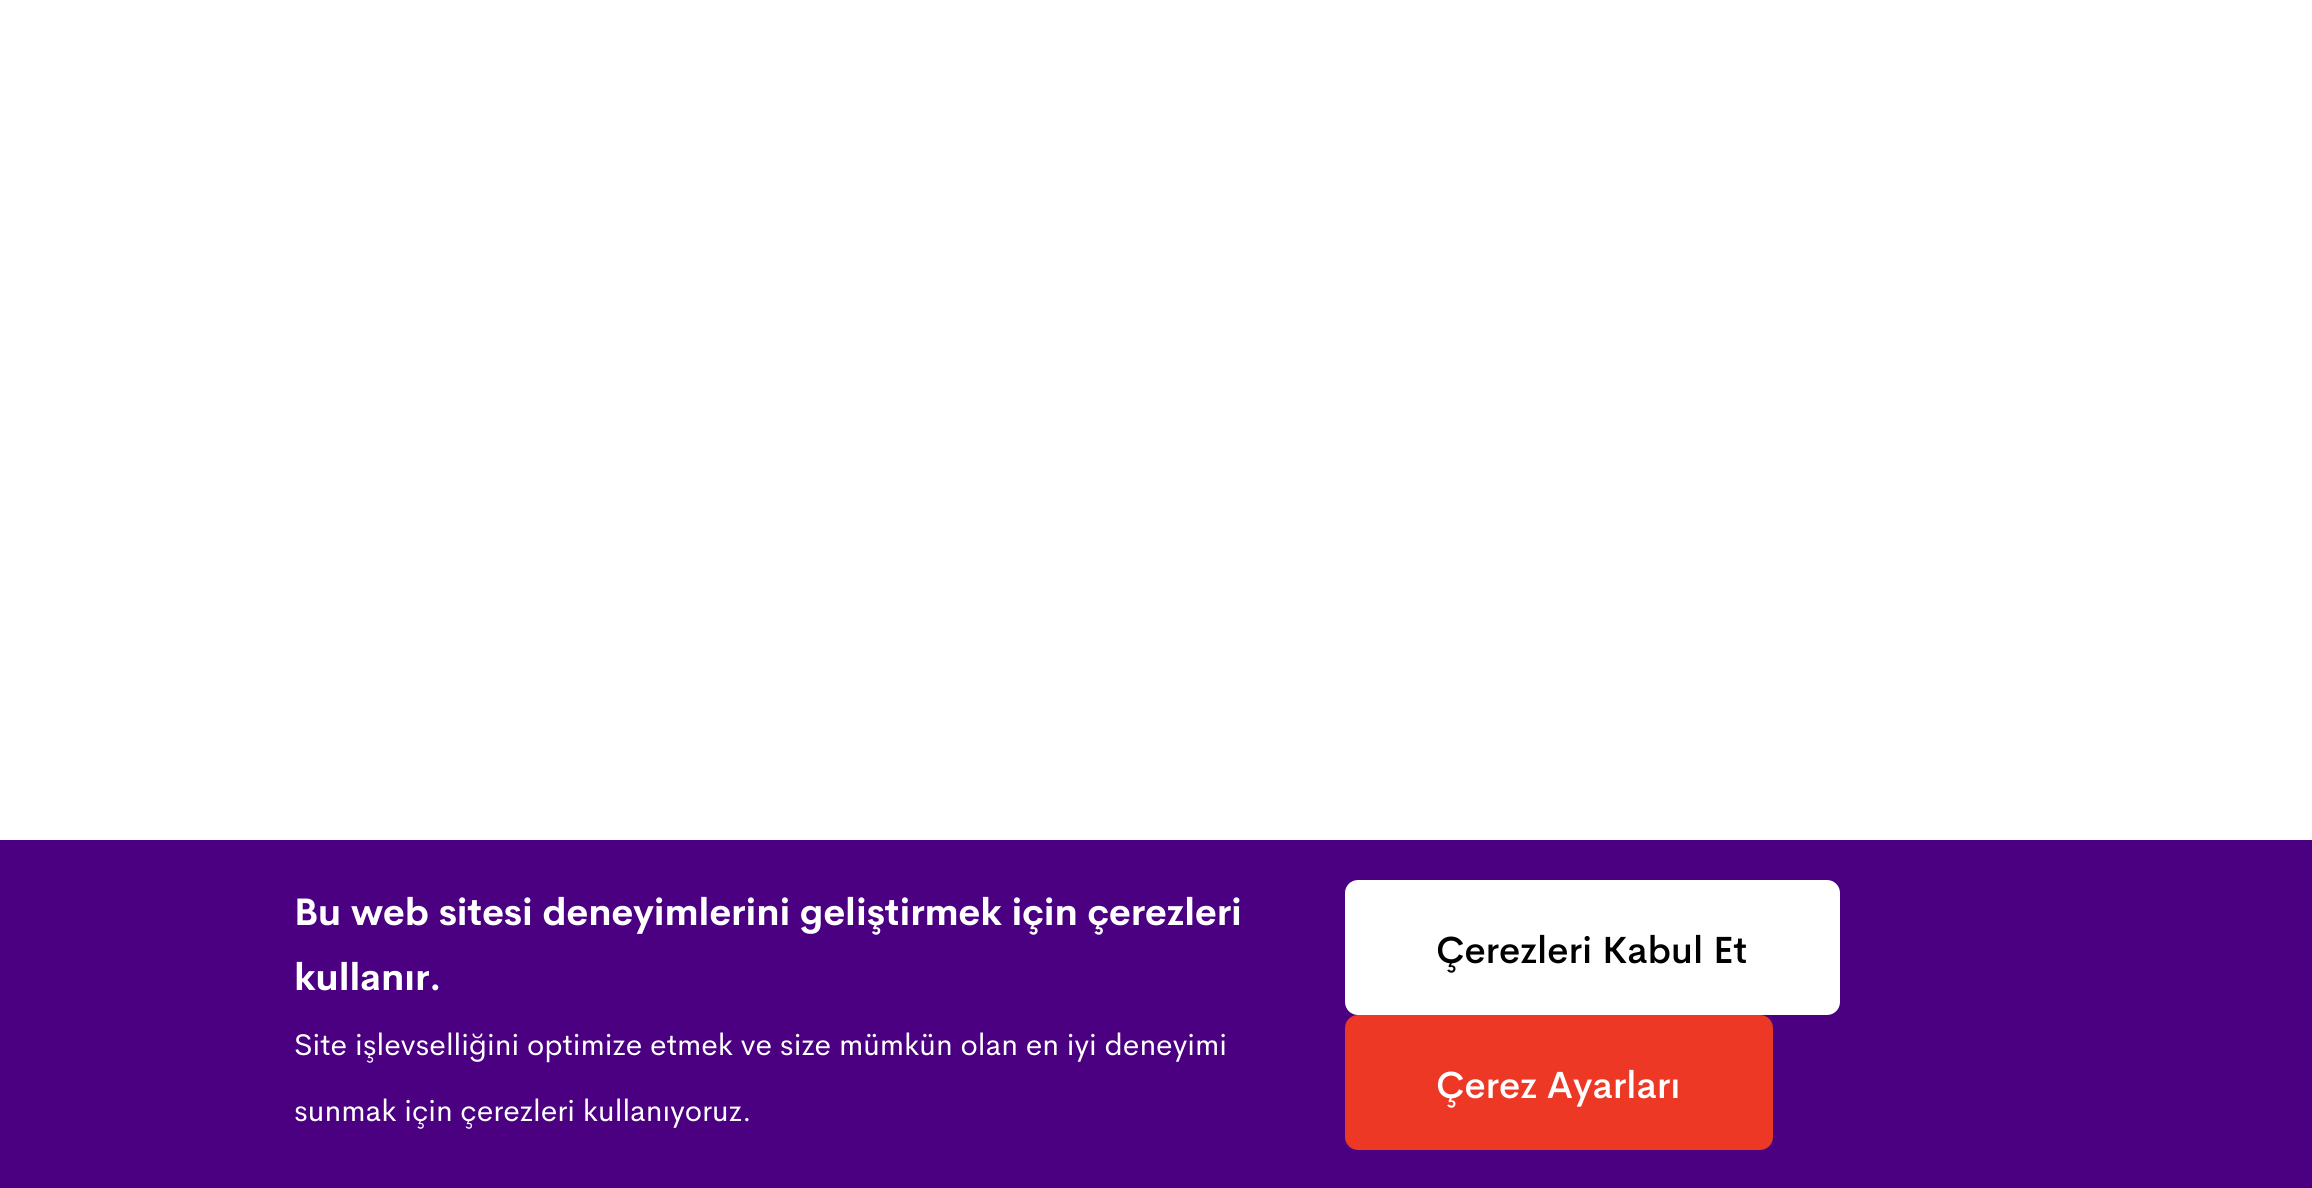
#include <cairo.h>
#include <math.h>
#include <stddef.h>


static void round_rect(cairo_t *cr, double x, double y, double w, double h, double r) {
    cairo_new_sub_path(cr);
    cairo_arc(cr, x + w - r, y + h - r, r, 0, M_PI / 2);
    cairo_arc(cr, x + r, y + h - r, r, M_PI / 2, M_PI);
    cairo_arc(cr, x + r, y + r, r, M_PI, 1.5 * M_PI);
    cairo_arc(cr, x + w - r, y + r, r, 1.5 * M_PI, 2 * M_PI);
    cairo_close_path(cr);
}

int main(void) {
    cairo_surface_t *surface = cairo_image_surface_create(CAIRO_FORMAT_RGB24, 2312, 1188);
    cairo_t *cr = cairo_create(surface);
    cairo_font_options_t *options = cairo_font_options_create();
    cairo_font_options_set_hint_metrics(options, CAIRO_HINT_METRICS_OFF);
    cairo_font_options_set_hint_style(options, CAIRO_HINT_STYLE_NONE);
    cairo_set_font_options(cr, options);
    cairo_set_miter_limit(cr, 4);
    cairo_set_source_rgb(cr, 1, 1, 1);
    cairo_paint(cr);
    cairo_set_source_rgb(cr, 0.294, 0, 0.51);
    cairo_rectangle(cr, 0, 840, 2312, 348);
    cairo_fill(cr);
    cairo_select_font_face(cr, "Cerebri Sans", CAIRO_FONT_SLANT_NORMAL, CAIRO_FONT_WEIGHT_BOLD);
    cairo_set_font_size(cr, 37.5);
    cairo_set_source_rgb(cr, 1, 1, 1);
    cairo_move_to(cr, 294, 925);
    cairo_show_text(cr, "Bu web sitesi deneyimlerini geliştirmek için çerezleri");
    cairo_move_to(cr, 294, 990);
    cairo_show_text(cr, "kullanır.");
    cairo_select_font_face(cr, "Cerebri Sans", CAIRO_FONT_SLANT_NORMAL, CAIRO_FONT_WEIGHT_NORMAL);
    cairo_set_font_size(cr, 30);
    cairo_move_to(cr, 294, 1055);
    cairo_show_text(cr, "Site işlevselliğini optimize etmek ve size mümkün olan en iyi deneyimi");
    cairo_move_to(cr, 294, 1121);
    cairo_show_text(cr, "sunmak için çerezleri kullanıyoruz.");
    round_rect(cr, 1345, 880, 495, 135, 13);
    cairo_fill(cr);
    cairo_select_font_face(cr, "Cerebri Sans Medium", CAIRO_FONT_SLANT_NORMAL, CAIRO_FONT_WEIGHT_NORMAL);
    cairo_set_font_size(cr, 37.5);
    cairo_set_source_rgb(cr, 0, 0, 0);
    cairo_move_to(cr, 1436, 963);
    cairo_show_text(cr, "Çerezleri Kabul Et");
    cairo_set_source_rgb(cr, 0.929, 0.22, 0.149);
    round_rect(cr, 1345, 1015, 428, 135, 13);
    cairo_fill(cr);
    cairo_set_source_rgb(cr, 1, 1, 1);
    cairo_move_to(cr, 1436, 1098);
    cairo_show_text(cr, "Çerez Ayarları");
    cairo_surface_write_to_png(surface, "page.png");
    cairo_font_options_destroy(options);
    cairo_destroy(cr);
    cairo_surface_destroy(surface);
    return 0;
}
